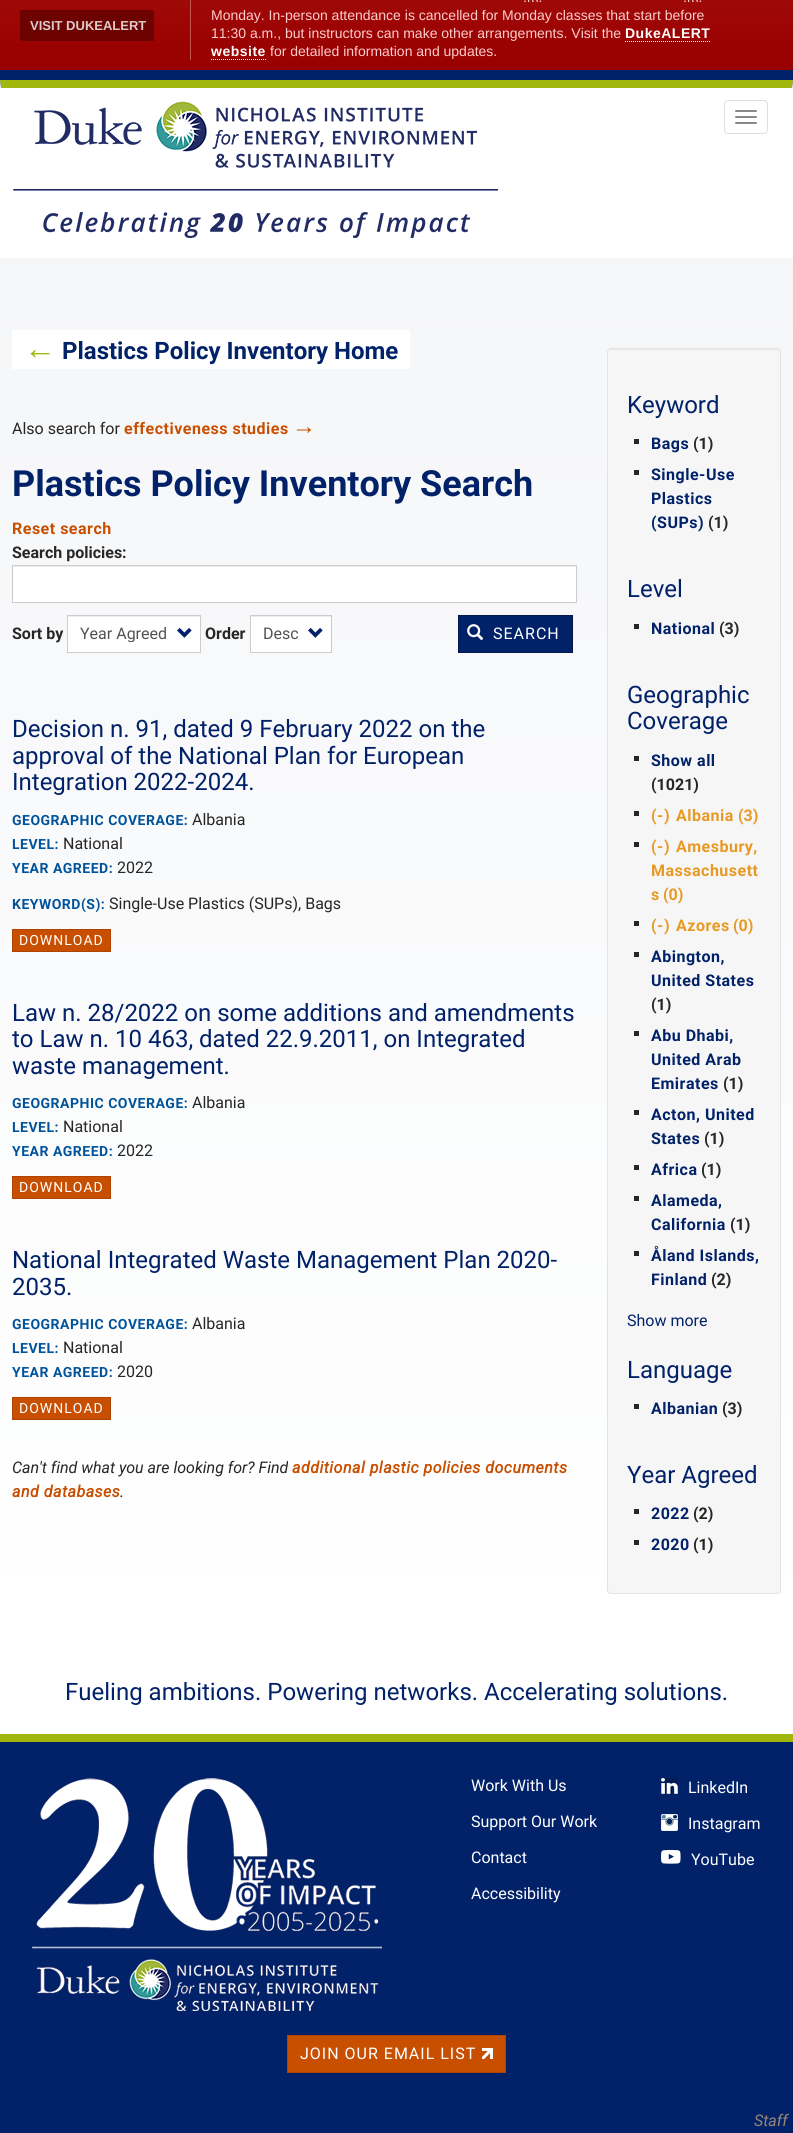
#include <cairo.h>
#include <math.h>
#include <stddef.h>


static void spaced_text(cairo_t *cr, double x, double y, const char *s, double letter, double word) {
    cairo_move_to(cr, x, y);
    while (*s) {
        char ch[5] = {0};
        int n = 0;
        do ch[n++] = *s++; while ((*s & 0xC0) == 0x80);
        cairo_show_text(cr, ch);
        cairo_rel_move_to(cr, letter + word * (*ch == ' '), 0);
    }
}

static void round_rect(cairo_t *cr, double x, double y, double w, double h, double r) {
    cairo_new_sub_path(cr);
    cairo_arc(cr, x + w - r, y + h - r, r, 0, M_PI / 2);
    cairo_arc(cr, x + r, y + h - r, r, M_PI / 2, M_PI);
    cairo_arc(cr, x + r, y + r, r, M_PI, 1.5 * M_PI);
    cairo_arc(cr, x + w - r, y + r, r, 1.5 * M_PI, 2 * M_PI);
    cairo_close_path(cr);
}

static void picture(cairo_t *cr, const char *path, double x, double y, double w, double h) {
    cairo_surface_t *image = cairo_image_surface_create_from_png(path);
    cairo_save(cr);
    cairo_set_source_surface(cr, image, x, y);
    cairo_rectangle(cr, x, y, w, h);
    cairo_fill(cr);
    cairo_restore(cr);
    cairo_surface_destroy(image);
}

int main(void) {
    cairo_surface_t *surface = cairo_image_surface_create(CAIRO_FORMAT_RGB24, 793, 2133);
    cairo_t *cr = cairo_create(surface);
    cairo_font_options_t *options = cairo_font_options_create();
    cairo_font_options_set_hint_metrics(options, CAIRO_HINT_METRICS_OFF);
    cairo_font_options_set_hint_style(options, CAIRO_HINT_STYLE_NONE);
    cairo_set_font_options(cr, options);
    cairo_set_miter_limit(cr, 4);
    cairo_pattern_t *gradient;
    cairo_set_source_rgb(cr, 0.004, 0.129, 0.412);
    cairo_paint(cr);
    picture(cr, "img1.png", 0, 0, 793, 70);
    cairo_set_source_rgb(cr, 0.427, 0.012, 0);
    cairo_rectangle(cr, 20, 10, 132, 30);
    cairo_fill(cr);
    cairo_rectangle(cr, 22, 11, 132, 30);
    cairo_fill(cr);
    cairo_select_font_face(cr, "Liberation Sans", CAIRO_FONT_SLANT_NORMAL, CAIRO_FONT_WEIGHT_BOLD);
    cairo_set_font_size(cr, 13);
    cairo_set_source_rgb(cr, 0.863, 0.796, 0.796);
    cairo_move_to(cr, 30, 30);
    cairo_show_text(cr, "VISIT DUKEALERT");
    cairo_set_source_rgb(cr, 0.757, 0.341, 0.322);
    cairo_rectangle(cr, 190, 0, 1, 60);
    cairo_fill(cr);
    cairo_select_font_face(cr, "Liberation Sans", CAIRO_FONT_SLANT_NORMAL, CAIRO_FONT_WEIGHT_NORMAL);
    cairo_set_font_size(cr, 14);
    cairo_set_source_rgb(cr, 1, 0.8, 0.8);
    cairo_move_to(cr, 523, 2);
    cairo_show_text(cr, ".m.");
    cairo_move_to(cr, 683, 2);
    cairo_show_text(cr, ".m.");
    cairo_move_to(cr, 211, 20);
    cairo_show_text(cr, "Monday. In-person attendance is cancelled for Monday classes that start before");
    cairo_move_to(cr, 211, 38);
    cairo_show_text(cr, "11:30 a.m., but instructors can make other arrangements. Visit the");
    cairo_select_font_face(cr, "Liberation Sans", CAIRO_FONT_SLANT_NORMAL, CAIRO_FONT_WEIGHT_BOLD);
    cairo_set_source_rgb(cr, 1, 1, 1);
    spaced_text(cr, 625, 38, "DukeALERT", 0.5, 0);
    cairo_new_path(cr);
    cairo_move_to(cr, 625, 41.5);
    cairo_line_to(cr, 710, 41.5);
    cairo_set_line_width(cr, 1);
    cairo_set_dash(cr, (double[]){1, 1}, 2, 0);
    cairo_stroke(cr);
    spaced_text(cr, 211, 56, "website", 0.5, 0);
    cairo_new_path(cr);
    cairo_move_to(cr, 211, 59.5);
    cairo_line_to(cr, 266, 59.5);
    cairo_stroke(cr);
    cairo_select_font_face(cr, "Liberation Sans", CAIRO_FONT_SLANT_NORMAL, CAIRO_FONT_WEIGHT_NORMAL);
    cairo_set_source_rgb(cr, 1, 0.8, 0.8);
    cairo_move_to(cr, 270, 56);
    cairo_show_text(cr, "for detailed information and updates.");
    cairo_set_source_rgb(cr, 1, 1, 1);
    cairo_rectangle(cr, 1, 88, 791, 169);
    cairo_fill(cr);
    cairo_set_source_rgb(cr, 0.631, 0.718, 0.051);
    cairo_new_path(cr);
    cairo_move_to(cr, 0, 80);
    cairo_line_to(cr, 793, 80);
    cairo_line_to(cr, 792, 88);
    cairo_line_to(cr, 1, 88);
    cairo_close_path(cr);
    cairo_fill(cr);
    cairo_set_source_rgb(cr, 1, 1, 1);
    cairo_new_path(cr);
    cairo_move_to(cr, 793, 80);
    cairo_line_to(cr, 793, 258);
    cairo_line_to(cr, 792, 257);
    cairo_line_to(cr, 792, 88);
    cairo_close_path(cr);
    cairo_fill(cr);
    cairo_rectangle(cr, 0, 257, 793, 1);
    cairo_fill(cr);
    cairo_new_path(cr);
    cairo_move_to(cr, 0, 258);
    cairo_line_to(cr, 0, 80);
    cairo_line_to(cr, 1, 88);
    cairo_line_to(cr, 1, 257);
    cairo_close_path(cr);
    cairo_fill(cr);
    picture(cr, "img2.png", 13, 101, 485, 137);
    round_rect(cr, 724.5, 100.5, 43, 33, 3.5);
    cairo_set_source_rgb(cr, 0.867, 0.867, 0.867);
    cairo_set_dash(cr, NULL, 0, 0);
    cairo_stroke(cr);
    cairo_set_source_rgb(cr, 0.533, 0.533, 0.533);
    round_rect(cr, 735, 110, 22, 2, 1);
    cairo_fill(cr);
    round_rect(cr, 735, 116, 22, 2, 1);
    cairo_fill(cr);
    round_rect(cr, 735, 122, 22, 2, 1);
    cairo_fill(cr);
    gradient = cairo_pattern_create_linear(396, 257, 397, 1650);
    cairo_pattern_add_color_stop_rgba(gradient, 0, 0.961, 0.965, 0.973, 1);
    cairo_pattern_add_color_stop_rgba(gradient, 1, 1, 1, 1, 1);
    cairo_set_source(cr, gradient);
    cairo_pattern_destroy(gradient);
    cairo_rectangle(cr, 0, 258, 793, 1392);
    cairo_fill(cr);
    cairo_set_source_rgb(cr, 1, 1, 1);
    cairo_rectangle(cr, 12, 330, 398, 39);
    cairo_fill(cr);
    cairo_select_font_face(cr, "Liberation Sans", CAIRO_FONT_SLANT_NORMAL, CAIRO_FONT_WEIGHT_BOLD);
    cairo_set_font_size(cr, 32);
    cairo_set_source_rgb(cr, 0.631, 0.718, 0.051);
    cairo_move_to(cr, 24, 359);
    cairo_show_text(cr, "←");
    cairo_select_font_face(cr, "Roboto", CAIRO_FONT_SLANT_NORMAL, CAIRO_FONT_WEIGHT_BOLD);
    cairo_set_font_size(cr, 24);
    cairo_set_source_rgb(cr, 0.004, 0.129, 0.412);
    cairo_move_to(cr, 62, 359);
    cairo_show_text(cr, "Plastics Policy Inventory Home");
    cairo_select_font_face(cr, "Roboto", CAIRO_FONT_SLANT_NORMAL, CAIRO_FONT_WEIGHT_NORMAL);
    cairo_set_font_size(cr, 16);
    cairo_set_source_rgb(cr, 0.149, 0.149, 0.149);
    cairo_move_to(cr, 12, 434);
    cairo_show_text(cr, "Also search for");
    cairo_select_font_face(cr, "Roboto", CAIRO_FONT_SLANT_NORMAL, CAIRO_FONT_WEIGHT_BOLD);
    cairo_set_source_rgb(cr, 0.784, 0.306, 0);
    spaced_text(cr, 124, 434, "effectiveness studies", 0.5, 0);
    cairo_select_font_face(cr, "Liberation Sans", CAIRO_FONT_SLANT_NORMAL, CAIRO_FONT_WEIGHT_NORMAL);
    cairo_set_font_size(cr, 24);
    cairo_move_to(cr, 292, 434);
    cairo_show_text(cr, "→");
    cairo_select_font_face(cr, "Roboto", CAIRO_FONT_SLANT_NORMAL, CAIRO_FONT_WEIGHT_BOLD);
    cairo_set_font_size(cr, 36);
    cairo_set_source_rgb(cr, 0.004, 0.129, 0.412);
    cairo_move_to(cr, 12, 496);
    cairo_show_text(cr, "Plastics Policy Inventory Search");
    cairo_set_font_size(cr, 16);
    cairo_set_source_rgb(cr, 0.784, 0.306, 0);
    spaced_text(cr, 12, 534, "Reset search", 0.5, 0);
    cairo_set_source_rgb(cr, 0.149, 0.149, 0.149);
    cairo_move_to(cr, 12, 558);
    cairo_show_text(cr, "Search policies:");
    cairo_set_source_rgb(cr, 1, 1, 1);
    cairo_rectangle(cr, 13, 567, 563, 35);
    cairo_fill(cr);
    cairo_set_source_rgb(cr, 0.925, 0.925, 0.925);
    cairo_rectangle(cr, 13, 566, 563, 1);
    cairo_fill(cr);
    cairo_rectangle(cr, 12.5, 565.5, 564, 37);
    cairo_set_source_rgb(cr, 0.8, 0.8, 0.8);
    cairo_stroke(cr);
    cairo_set_source_rgb(cr, 0.149, 0.149, 0.149);
    cairo_move_to(cr, 12, 639);
    cairo_show_text(cr, "Sort by");
    cairo_set_source_rgb(cr, 1, 1, 1);
    cairo_rectangle(cr, 68, 617, 132, 35);
    cairo_fill(cr);
    cairo_set_source_rgb(cr, 0.925, 0.925, 0.925);
    cairo_rectangle(cr, 68, 616, 132, 1);
    cairo_fill(cr);
    cairo_rectangle(cr, 67.5, 615.5, 133, 37);
    cairo_set_source_rgb(cr, 0.8, 0.8, 0.8);
    cairo_stroke(cr);
    cairo_save(cr);
    cairo_rectangle(cr, 80, 626, 88, 16);
    cairo_clip(cr);
    cairo_select_font_face(cr, "Roboto", CAIRO_FONT_SLANT_NORMAL, CAIRO_FONT_WEIGHT_NORMAL);
    cairo_set_source_rgb(cr, 0.322, 0.322, 0.322);
    cairo_move_to(cr, 80, 639);
    cairo_show_text(cr, "Year Agreed");
    cairo_restore(cr);
    picture(cr, "img3.png", 177, 627, 15, 11);
    cairo_set_source_rgb(cr, 0.149, 0.149, 0.149);
    cairo_move_to(cr, 205, 639);
    cairo_show_text(cr, "Order");
    cairo_set_source_rgb(cr, 1, 1, 1);
    cairo_rectangle(cr, 251, 617, 80, 35);
    cairo_fill(cr);
    cairo_set_source_rgb(cr, 0.925, 0.925, 0.925);
    cairo_rectangle(cr, 251, 616, 80, 1);
    cairo_fill(cr);
    cairo_rectangle(cr, 250.5, 615.5, 81, 37);
    cairo_set_source_rgb(cr, 0.8, 0.8, 0.8);
    cairo_stroke(cr);
    cairo_select_font_face(cr, "Roboto", CAIRO_FONT_SLANT_NORMAL, CAIRO_FONT_WEIGHT_NORMAL);
    cairo_set_source_rgb(cr, 0.322, 0.322, 0.322);
    cairo_move_to(cr, 263, 639);
    cairo_show_text(cr, "Desc");
    picture(cr, "img3.png", 308, 627, 15, 11);
    cairo_set_source_rgb(cr, 0.004, 0.129, 0.412);
    cairo_rectangle(cr, 458.5, 615.5, 114, 37);
    cairo_fill_preserve(cr);
    cairo_set_source_rgb(cr, 0.004, 0.098, 0.314);
    cairo_stroke(cr);
    picture(cr, "img4.png", 467, 624, 17, 17);
    cairo_set_source_rgb(cr, 1, 1, 1);
    spaced_text(cr, 493, 639, "SEARCH", 1, 0);
    cairo_set_font_size(cr, 24);
    cairo_set_source_rgb(cr, 0.004, 0.129, 0.412);
    cairo_move_to(cr, 12, 737);
    cairo_show_text(cr, "Decision n. 91, dated 9 February 2022 on the");
    cairo_move_to(cr, 12, 764);
    cairo_show_text(cr, "approval of the National Plan for European");
    cairo_move_to(cr, 12, 790);
    cairo_show_text(cr, "Integration 2022-2024.");
    cairo_select_font_face(cr, "Roboto", CAIRO_FONT_SLANT_NORMAL, CAIRO_FONT_WEIGHT_BOLD);
    cairo_set_font_size(cr, 14);
    cairo_set_source_rgb(cr, 0, 0.325, 0.608);
    spaced_text(cr, 12, 825, "GEOGRAPHIC COVERAGE:", 0.5, 0);
    cairo_select_font_face(cr, "Roboto", CAIRO_FONT_SLANT_NORMAL, CAIRO_FONT_WEIGHT_NORMAL);
    cairo_set_font_size(cr, 16);
    cairo_set_source_rgb(cr, 0.149, 0.149, 0.149);
    cairo_move_to(cr, 192, 825);
    cairo_show_text(cr, "Albania");
    cairo_select_font_face(cr, "Roboto", CAIRO_FONT_SLANT_NORMAL, CAIRO_FONT_WEIGHT_BOLD);
    cairo_set_font_size(cr, 14);
    cairo_set_source_rgb(cr, 0, 0.325, 0.608);
    spaced_text(cr, 12, 849, "LEVEL:", 0.5, 0);
    cairo_select_font_face(cr, "Roboto", CAIRO_FONT_SLANT_NORMAL, CAIRO_FONT_WEIGHT_NORMAL);
    cairo_set_font_size(cr, 16);
    cairo_set_source_rgb(cr, 0.149, 0.149, 0.149);
    cairo_move_to(cr, 63, 849);
    cairo_show_text(cr, "National");
    cairo_select_font_face(cr, "Roboto", CAIRO_FONT_SLANT_NORMAL, CAIRO_FONT_WEIGHT_BOLD);
    cairo_set_font_size(cr, 14);
    cairo_set_source_rgb(cr, 0, 0.325, 0.608);
    spaced_text(cr, 12, 873, "YEAR AGREED:", 0.5, 0);
    cairo_select_font_face(cr, "Roboto", CAIRO_FONT_SLANT_NORMAL, CAIRO_FONT_WEIGHT_NORMAL);
    cairo_set_font_size(cr, 16);
    cairo_set_source_rgb(cr, 0.149, 0.149, 0.149);
    cairo_move_to(cr, 117, 873);
    cairo_show_text(cr, "2022");
    cairo_select_font_face(cr, "Roboto", CAIRO_FONT_SLANT_NORMAL, CAIRO_FONT_WEIGHT_BOLD);
    cairo_set_font_size(cr, 14);
    cairo_set_source_rgb(cr, 0, 0.325, 0.608);
    spaced_text(cr, 12, 909, "KEYWORD(S):", 0.5, 0);
    cairo_select_font_face(cr, "Roboto", CAIRO_FONT_SLANT_NORMAL, CAIRO_FONT_WEIGHT_NORMAL);
    cairo_set_font_size(cr, 16);
    cairo_set_source_rgb(cr, 0.149, 0.149, 0.149);
    cairo_move_to(cr, 109, 909);
    cairo_show_text(cr, "Single-Use Plastics (SUPs), Bags");
    cairo_set_source_rgb(cr, 0.784, 0.306, 0);
    cairo_rectangle(cr, 12.5, 929.5, 98, 22);
    cairo_fill_preserve(cr);
    cairo_set_source_rgb(cr, 0.686, 0.267, 0);
    cairo_stroke(cr);
    cairo_set_font_size(cr, 14);
    cairo_set_source_rgb(cr, 1, 1, 1);
    spaced_text(cr, 19, 945, "DOWNLOAD", 1, 0);
    cairo_set_font_size(cr, 24);
    cairo_set_source_rgb(cr, 0.004, 0.129, 0.412);
    cairo_move_to(cr, 12, 1021);
    cairo_show_text(cr, "Law n. 28/2022 on some additions and amendments");
    cairo_move_to(cr, 12, 1047);
    cairo_show_text(cr, "to Law n. 10 463, dated 22.9.2011, on Integrated");
    cairo_move_to(cr, 12, 1074);
    cairo_show_text(cr, "waste management.");
    cairo_select_font_face(cr, "Roboto", CAIRO_FONT_SLANT_NORMAL, CAIRO_FONT_WEIGHT_BOLD);
    cairo_set_font_size(cr, 14);
    cairo_set_source_rgb(cr, 0, 0.325, 0.608);
    spaced_text(cr, 12, 1108, "GEOGRAPHIC COVERAGE:", 0.5, 0);
    cairo_select_font_face(cr, "Roboto", CAIRO_FONT_SLANT_NORMAL, CAIRO_FONT_WEIGHT_NORMAL);
    cairo_set_font_size(cr, 16);
    cairo_set_source_rgb(cr, 0.149, 0.149, 0.149);
    cairo_move_to(cr, 192, 1108);
    cairo_show_text(cr, "Albania");
    cairo_select_font_face(cr, "Roboto", CAIRO_FONT_SLANT_NORMAL, CAIRO_FONT_WEIGHT_BOLD);
    cairo_set_font_size(cr, 14);
    cairo_set_source_rgb(cr, 0, 0.325, 0.608);
    spaced_text(cr, 12, 1132, "LEVEL:", 0.5, 0);
    cairo_select_font_face(cr, "Roboto", CAIRO_FONT_SLANT_NORMAL, CAIRO_FONT_WEIGHT_NORMAL);
    cairo_set_font_size(cr, 16);
    cairo_set_source_rgb(cr, 0.149, 0.149, 0.149);
    cairo_move_to(cr, 63, 1132);
    cairo_show_text(cr, "National");
    cairo_select_font_face(cr, "Roboto", CAIRO_FONT_SLANT_NORMAL, CAIRO_FONT_WEIGHT_BOLD);
    cairo_set_font_size(cr, 14);
    cairo_set_source_rgb(cr, 0, 0.325, 0.608);
    spaced_text(cr, 12, 1156, "YEAR AGREED:", 0.5, 0);
    cairo_select_font_face(cr, "Roboto", CAIRO_FONT_SLANT_NORMAL, CAIRO_FONT_WEIGHT_NORMAL);
    cairo_set_font_size(cr, 16);
    cairo_set_source_rgb(cr, 0.149, 0.149, 0.149);
    cairo_move_to(cr, 117, 1156);
    cairo_show_text(cr, "2022");
    cairo_set_source_rgb(cr, 0.784, 0.306, 0);
    cairo_rectangle(cr, 12.5, 1176.5, 98, 22);
    cairo_fill_preserve(cr);
    cairo_set_source_rgb(cr, 0.686, 0.267, 0);
    cairo_stroke(cr);
    cairo_set_font_size(cr, 14);
    cairo_set_source_rgb(cr, 1, 1, 1);
    spaced_text(cr, 19, 1192, "DOWNLOAD", 1, 0);
    cairo_set_font_size(cr, 24);
    cairo_set_source_rgb(cr, 0.004, 0.129, 0.412);
    cairo_move_to(cr, 12, 1268);
    cairo_show_text(cr, "National Integrated Waste Management Plan 2020-");
    cairo_move_to(cr, 12, 1295);
    cairo_show_text(cr, "2035.");
    cairo_select_font_face(cr, "Roboto", CAIRO_FONT_SLANT_NORMAL, CAIRO_FONT_WEIGHT_BOLD);
    cairo_set_font_size(cr, 14);
    cairo_set_source_rgb(cr, 0, 0.325, 0.608);
    spaced_text(cr, 12, 1329, "GEOGRAPHIC COVERAGE:", 0.5, 0);
    cairo_select_font_face(cr, "Roboto", CAIRO_FONT_SLANT_NORMAL, CAIRO_FONT_WEIGHT_NORMAL);
    cairo_set_font_size(cr, 16);
    cairo_set_source_rgb(cr, 0.149, 0.149, 0.149);
    cairo_move_to(cr, 192, 1329);
    cairo_show_text(cr, "Albania");
    cairo_select_font_face(cr, "Roboto", CAIRO_FONT_SLANT_NORMAL, CAIRO_FONT_WEIGHT_BOLD);
    cairo_set_font_size(cr, 14);
    cairo_set_source_rgb(cr, 0, 0.325, 0.608);
    spaced_text(cr, 12, 1353, "LEVEL:", 0.5, 0);
    cairo_select_font_face(cr, "Roboto", CAIRO_FONT_SLANT_NORMAL, CAIRO_FONT_WEIGHT_NORMAL);
    cairo_set_font_size(cr, 16);
    cairo_set_source_rgb(cr, 0.149, 0.149, 0.149);
    cairo_move_to(cr, 63, 1353);
    cairo_show_text(cr, "National");
    cairo_select_font_face(cr, "Roboto", CAIRO_FONT_SLANT_NORMAL, CAIRO_FONT_WEIGHT_BOLD);
    cairo_set_font_size(cr, 14);
    cairo_set_source_rgb(cr, 0, 0.325, 0.608);
    spaced_text(cr, 12, 1377, "YEAR AGREED:", 0.5, 0);
    cairo_select_font_face(cr, "Roboto", CAIRO_FONT_SLANT_NORMAL, CAIRO_FONT_WEIGHT_NORMAL);
    cairo_set_font_size(cr, 16);
    cairo_set_source_rgb(cr, 0.149, 0.149, 0.149);
    cairo_move_to(cr, 117, 1377);
    cairo_show_text(cr, "2020");
    cairo_set_source_rgb(cr, 0.784, 0.306, 0);
    cairo_rectangle(cr, 12.5, 1397.5, 98, 22);
    cairo_fill_preserve(cr);
    cairo_set_source_rgb(cr, 0.686, 0.267, 0);
    cairo_stroke(cr);
    cairo_set_font_size(cr, 14);
    cairo_set_source_rgb(cr, 1, 1, 1);
    spaced_text(cr, 19, 1413, "DOWNLOAD", 1, 0);
    cairo_select_font_face(cr, "Roboto", CAIRO_FONT_SLANT_ITALIC, CAIRO_FONT_WEIGHT_NORMAL);
    cairo_set_font_size(cr, 16);
    cairo_set_source_rgb(cr, 0.149, 0.149, 0.149);
    cairo_move_to(cr, 12, 1473);
    cairo_show_text(cr, "Can't find what you are looking for? Find");
    cairo_select_font_face(cr, "Roboto", CAIRO_FONT_SLANT_ITALIC, CAIRO_FONT_WEIGHT_BOLD);
    cairo_set_source_rgb(cr, 0.784, 0.306, 0);
    spaced_text(cr, 292, 1473, "additional plastic policies documents", 0.5, 0);
    spaced_text(cr, 12, 1497, "and databases", 0.5, 0);
    cairo_select_font_face(cr, "Roboto", CAIRO_FONT_SLANT_ITALIC, CAIRO_FONT_WEIGHT_NORMAL);
    cairo_set_source_rgb(cr, 0.149, 0.149, 0.149);
    cairo_move_to(cr, 120, 1497);
    cairo_show_text(cr, ".");
    cairo_set_source_rgb(cr, 0.961, 0.961, 0.961);
    round_rect(cr, 607, 348, 174, 1246, 4);
    cairo_fill(cr);
    cairo_set_source_rgb(cr, 0.914, 0.914, 0.914);
    cairo_new_path(cr);
    cairo_move_to(cr, 611, 350);
    cairo_line_to(cr, 777, 350);
    cairo_curve_to(cr, 779, 350, 780, 351, 780, 353);
    cairo_line_to(cr, 780, 352);
    cairo_curve_to(cr, 780, 350, 779, 349, 777, 349);
    cairo_line_to(cr, 611, 349);
    cairo_curve_to(cr, 609, 349, 608, 350, 608, 352);
    cairo_line_to(cr, 608, 353);
    cairo_curve_to(cr, 608, 351, 609, 350, 611, 350);
    cairo_close_path(cr);
    cairo_fill(cr);
    round_rect(cr, 607.5, 348.5, 173, 1245, 3.5);
    cairo_set_source_rgb(cr, 0.89, 0.89, 0.89);
    cairo_stroke(cr);
    cairo_select_font_face(cr, "Roboto", CAIRO_FONT_SLANT_NORMAL, CAIRO_FONT_WEIGHT_NORMAL);
    cairo_set_font_size(cr, 24);
    cairo_set_source_rgb(cr, 0.004, 0.129, 0.412);
    cairo_move_to(cr, 627, 413);
    cairo_show_text(cr, "Keyword");
    cairo_set_source_rgb(cr, 0.149, 0.149, 0.149);
    cairo_rectangle(cr, 634, 439, 5, 5);
    cairo_fill(cr);
    cairo_select_font_face(cr, "Roboto", CAIRO_FONT_SLANT_NORMAL, CAIRO_FONT_WEIGHT_BOLD);
    cairo_set_font_size(cr, 16);
    cairo_set_source_rgb(cr, 0.004, 0.129, 0.412);
    spaced_text(cr, 651, 449, "Bags", 0.5, 0);
    cairo_set_source_rgb(cr, 0.149, 0.149, 0.149);
    cairo_move_to(cr, 693, 449);
    cairo_show_text(cr, "(1)");
    cairo_rectangle(cr, 634, 470, 5, 5);
    cairo_fill(cr);
    cairo_set_source_rgb(cr, 0.004, 0.129, 0.412);
    spaced_text(cr, 651, 480, "Single-Use", 0.5, 0);
    spaced_text(cr, 651, 504, "Plastics", 0.5, 0);
    spaced_text(cr, 651, 528, "(SUPs)", 0.5, 0);
    cairo_set_source_rgb(cr, 0.149, 0.149, 0.149);
    cairo_move_to(cr, 708, 528);
    cairo_show_text(cr, "(1)");
    cairo_select_font_face(cr, "Roboto", CAIRO_FONT_SLANT_NORMAL, CAIRO_FONT_WEIGHT_NORMAL);
    cairo_set_font_size(cr, 24);
    cairo_set_source_rgb(cr, 0.004, 0.129, 0.412);
    cairo_move_to(cr, 627, 597);
    cairo_show_text(cr, "Level");
    cairo_set_source_rgb(cr, 0.149, 0.149, 0.149);
    cairo_rectangle(cr, 634, 624, 5, 5);
    cairo_fill(cr);
    cairo_select_font_face(cr, "Roboto", CAIRO_FONT_SLANT_NORMAL, CAIRO_FONT_WEIGHT_BOLD);
    cairo_set_font_size(cr, 16);
    cairo_set_source_rgb(cr, 0.004, 0.129, 0.412);
    spaced_text(cr, 651, 634, "National", 0.5, 0);
    cairo_set_source_rgb(cr, 0.149, 0.149, 0.149);
    cairo_move_to(cr, 719, 634);
    cairo_show_text(cr, "(3)");
    cairo_select_font_face(cr, "Roboto", CAIRO_FONT_SLANT_NORMAL, CAIRO_FONT_WEIGHT_NORMAL);
    cairo_set_font_size(cr, 24);
    cairo_set_source_rgb(cr, 0.004, 0.129, 0.412);
    cairo_move_to(cr, 627, 703);
    cairo_show_text(cr, "Geographic");
    cairo_move_to(cr, 627, 729);
    cairo_show_text(cr, "Coverage");
    cairo_set_source_rgb(cr, 0.149, 0.149, 0.149);
    cairo_rectangle(cr, 634, 756, 5, 5);
    cairo_fill(cr);
    cairo_select_font_face(cr, "Roboto", CAIRO_FONT_SLANT_NORMAL, CAIRO_FONT_WEIGHT_BOLD);
    cairo_set_font_size(cr, 16);
    cairo_set_source_rgb(cr, 0.004, 0.129, 0.412);
    spaced_text(cr, 651, 766, "Show all", 0.5, 0);
    cairo_set_source_rgb(cr, 0.149, 0.149, 0.149);
    cairo_move_to(cr, 651, 790);
    cairo_show_text(cr, "(1021)");
    cairo_rectangle(cr, 634, 811, 5, 5);
    cairo_fill(cr);
    cairo_set_source_rgb(cr, 0.91, 0.6, 0.137);
    spaced_text(cr, 651, 821, "(-)", 0.5, 0);
    spaced_text(cr, 676, 821, "Albania", 0.5, 0);
    cairo_move_to(cr, 738, 821);
    cairo_show_text(cr, "(3)");
    cairo_set_source_rgb(cr, 0.149, 0.149, 0.149);
    cairo_rectangle(cr, 634, 842, 5, 5);
    cairo_fill(cr);
    cairo_set_source_rgb(cr, 0.91, 0.6, 0.137);
    spaced_text(cr, 651, 852, "(-)", 0.5, 0);
    spaced_text(cr, 676, 852, "Amesbury,", 0.5, 0);
    spaced_text(cr, 651, 876, "Massachusett", 0.5, 0);
    spaced_text(cr, 651, 900, "s", 0.5, 0);
    cairo_move_to(cr, 663, 900);
    cairo_show_text(cr, "(0)");
    cairo_set_source_rgb(cr, 0.149, 0.149, 0.149);
    cairo_rectangle(cr, 634, 921, 5, 5);
    cairo_fill(cr);
    cairo_set_source_rgb(cr, 0.91, 0.6, 0.137);
    spaced_text(cr, 651, 931, "(-)", 0.5, 0);
    spaced_text(cr, 676, 931, "Azores", 0.5, 0);
    cairo_move_to(cr, 733, 931);
    cairo_show_text(cr, "(0)");
    cairo_set_source_rgb(cr, 0.149, 0.149, 0.149);
    cairo_rectangle(cr, 634, 952, 5, 5);
    cairo_fill(cr);
    cairo_set_source_rgb(cr, 0.004, 0.129, 0.412);
    spaced_text(cr, 651, 962, "Abington,", 0.5, 0);
    spaced_text(cr, 651, 986, "United States", 0.5, 0);
    cairo_set_source_rgb(cr, 0.149, 0.149, 0.149);
    cairo_move_to(cr, 651, 1010);
    cairo_show_text(cr, "(1)");
    cairo_rectangle(cr, 634, 1031, 5, 5);
    cairo_fill(cr);
    cairo_set_source_rgb(cr, 0.004, 0.129, 0.412);
    spaced_text(cr, 651, 1041, "Abu Dhabi,", 0.5, 0);
    spaced_text(cr, 651, 1065, "United Arab", 0.5, 0);
    spaced_text(cr, 651, 1089, "Emirates", 0.5, 0);
    cairo_set_source_rgb(cr, 0.149, 0.149, 0.149);
    cairo_move_to(cr, 723, 1089);
    cairo_show_text(cr, "(1)");
    cairo_rectangle(cr, 634, 1110, 5, 5);
    cairo_fill(cr);
    cairo_set_source_rgb(cr, 0.004, 0.129, 0.412);
    spaced_text(cr, 651, 1120, "Acton, United", 0.5, 0);
    spaced_text(cr, 651, 1144, "States", 0.5, 0);
    cairo_set_source_rgb(cr, 0.149, 0.149, 0.149);
    cairo_move_to(cr, 704, 1144);
    cairo_show_text(cr, "(1)");
    cairo_rectangle(cr, 634, 1165, 5, 5);
    cairo_fill(cr);
    cairo_set_source_rgb(cr, 0.004, 0.129, 0.412);
    spaced_text(cr, 651, 1175, "Africa", 0.5, 0);
    cairo_set_source_rgb(cr, 0.149, 0.149, 0.149);
    cairo_move_to(cr, 701, 1175);
    cairo_show_text(cr, "(1)");
    cairo_rectangle(cr, 634, 1196, 5, 5);
    cairo_fill(cr);
    cairo_set_source_rgb(cr, 0.004, 0.129, 0.412);
    spaced_text(cr, 651, 1206, "Alameda,", 0.5, 0);
    spaced_text(cr, 651, 1230, "California", 0.5, 0);
    cairo_set_source_rgb(cr, 0.149, 0.149, 0.149);
    cairo_move_to(cr, 730, 1230);
    cairo_show_text(cr, "(1)");
    cairo_rectangle(cr, 634, 1251, 5, 5);
    cairo_fill(cr);
    cairo_set_source_rgb(cr, 0.004, 0.129, 0.412);
    spaced_text(cr, 651, 1261, "Åland Islands,", 0.5, 0);
    spaced_text(cr, 651, 1285, "Finland", 0.5, 0);
    cairo_set_source_rgb(cr, 0.149, 0.149, 0.149);
    cairo_move_to(cr, 711, 1285);
    cairo_show_text(cr, "(2)");
    cairo_select_font_face(cr, "Roboto", CAIRO_FONT_SLANT_NORMAL, CAIRO_FONT_WEIGHT_NORMAL);
    cairo_set_source_rgb(cr, 0.004, 0.129, 0.412);
    cairo_move_to(cr, 627, 1326);
    cairo_show_text(cr, "Show more");
    cairo_set_font_size(cr, 24);
    cairo_move_to(cr, 627, 1378);
    cairo_show_text(cr, "Language");
    cairo_set_source_rgb(cr, 0.149, 0.149, 0.149);
    cairo_rectangle(cr, 634, 1404, 5, 5);
    cairo_fill(cr);
    cairo_select_font_face(cr, "Roboto", CAIRO_FONT_SLANT_NORMAL, CAIRO_FONT_WEIGHT_BOLD);
    cairo_set_font_size(cr, 16);
    cairo_set_source_rgb(cr, 0.004, 0.129, 0.412);
    spaced_text(cr, 651, 1414, "Albanian", 0.5, 0);
    cairo_set_source_rgb(cr, 0.149, 0.149, 0.149);
    cairo_move_to(cr, 722, 1414);
    cairo_show_text(cr, "(3)");
    cairo_select_font_face(cr, "Roboto", CAIRO_FONT_SLANT_NORMAL, CAIRO_FONT_WEIGHT_NORMAL);
    cairo_set_font_size(cr, 24);
    cairo_set_source_rgb(cr, 0.004, 0.129, 0.412);
    cairo_move_to(cr, 627, 1483);
    cairo_show_text(cr, "Year Agreed");
    cairo_set_source_rgb(cr, 0.149, 0.149, 0.149);
    cairo_rectangle(cr, 634, 1509, 5, 5);
    cairo_fill(cr);
    cairo_select_font_face(cr, "Roboto", CAIRO_FONT_SLANT_NORMAL, CAIRO_FONT_WEIGHT_BOLD);
    cairo_set_font_size(cr, 16);
    cairo_set_source_rgb(cr, 0.004, 0.129, 0.412);
    spaced_text(cr, 651, 1519, "2022", 0.5, 0);
    cairo_set_source_rgb(cr, 0.149, 0.149, 0.149);
    cairo_move_to(cr, 693, 1519);
    cairo_show_text(cr, "(2)");
    cairo_rectangle(cr, 634, 1540, 5, 5);
    cairo_fill(cr);
    cairo_set_source_rgb(cr, 0.004, 0.129, 0.412);
    spaced_text(cr, 651, 1550, "2020", 0.5, 0);
    cairo_set_source_rgb(cr, 0.149, 0.149, 0.149);
    cairo_move_to(cr, 693, 1550);
    cairo_show_text(cr, "(1)");
    cairo_set_source_rgb(cr, 1, 1, 1);
    cairo_rectangle(cr, 0, 1650, 793, 84);
    cairo_fill(cr);
    cairo_select_font_face(cr, "Roboto", CAIRO_FONT_SLANT_NORMAL, CAIRO_FONT_WEIGHT_NORMAL);
    cairo_set_font_size(cr, 24);
    cairo_set_source_rgb(cr, 0.004, 0.129, 0.412);
    cairo_move_to(cr, 65, 1700);
    cairo_show_text(cr, "Fueling ambitions. Powering networks. Accelerating solutions.");
    cairo_set_source_rgb(cr, 0.631, 0.718, 0.051);
    cairo_rectangle(cr, 0, 1734, 793, 8);
    cairo_fill(cr);
    picture(cr, "img5.png", 32, 1778, 350, 233);
    cairo_set_font_size(cr, 16);
    cairo_set_source_rgb(cr, 1, 1, 1);
    cairo_move_to(cr, 471, 1791);
    cairo_show_text(cr, "Work With Us");
    cairo_move_to(cr, 471, 1827);
    cairo_show_text(cr, "Support Our Work");
    cairo_move_to(cr, 471, 1863);
    cairo_show_text(cr, "Contact");
    cairo_move_to(cr, 471, 1899);
    cairo_show_text(cr, "Accessibility");
    picture(cr, "img6.png", 661, 1778, 17, 16);
    cairo_move_to(cr, 688, 1793);
    cairo_show_text(cr, "LinkedIn");
    picture(cr, "img7.png", 661, 1814, 17, 17);
    cairo_move_to(cr, 688, 1829);
    cairo_show_text(cr, "Instagram");
    picture(cr, "img8.png", 661, 1850, 20, 14);
    cairo_move_to(cr, 691, 1865);
    cairo_show_text(cr, "YouTube");
    cairo_set_source_rgb(cr, 0.784, 0.306, 0);
    cairo_rectangle(cr, 287.5, 2035.5, 218, 37);
    cairo_fill_preserve(cr);
    cairo_set_source_rgb(cr, 0.686, 0.267, 0);
    cairo_stroke(cr);
    cairo_set_source_rgb(cr, 1, 1, 1);
    spaced_text(cr, 300, 2059, "JOIN OUR EMAIL LIST", 1, 0);
    picture(cr, "img9.png", 482, 2048, 11, 11);
    cairo_select_font_face(cr, "Roboto", CAIRO_FONT_SLANT_ITALIC, CAIRO_FONT_WEIGHT_NORMAL);
    cairo_set_source_rgb(cr, 0.596, 0.525, 0.459);
    cairo_move_to(cr, 754, 2126);
    cairo_show_text(cr, "Staff");
    cairo_surface_write_to_png(surface, "page.png");
    cairo_font_options_destroy(options);
    cairo_destroy(cr);
    cairo_surface_destroy(surface);
    return 0;
}
